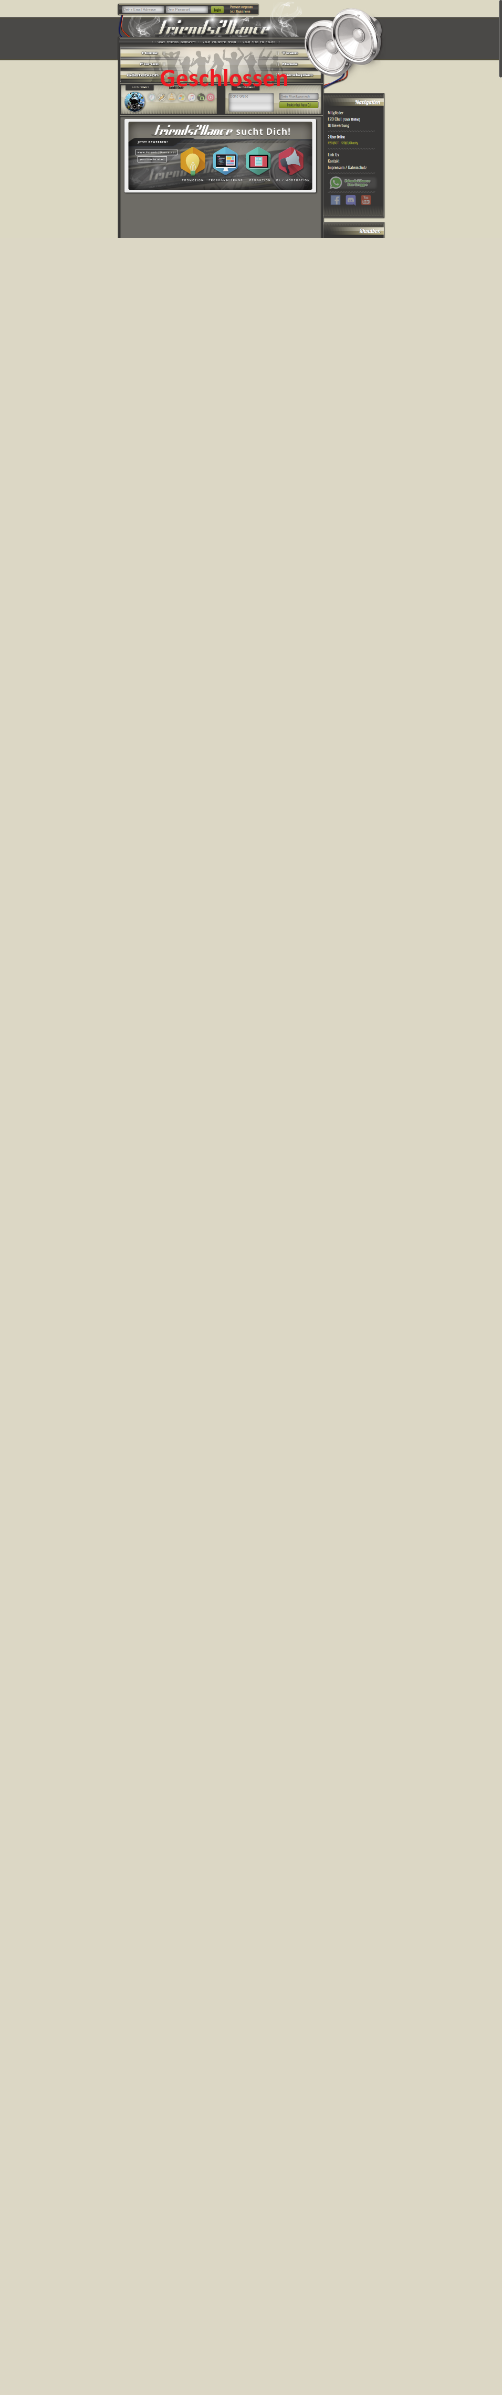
#include <cairo.h>
#include <math.h>
#include <stddef.h>


static void picture(cairo_t *cr, const char *path, double x, double y, double w, double h) {
    cairo_surface_t *image = cairo_image_surface_create_from_png(path);
    cairo_save(cr);
    cairo_set_source_surface(cr, image, x, y);
    cairo_rectangle(cr, x, y, w, h);
    cairo_fill(cr);
    cairo_restore(cr);
    cairo_surface_destroy(image);
}

int main(void) {
    cairo_surface_t *surface = cairo_image_surface_create(CAIRO_FORMAT_RGB24, 502, 2395);
    cairo_t *cr = cairo_create(surface);
    cairo_font_options_t *options = cairo_font_options_create();
    cairo_font_options_set_hint_metrics(options, CAIRO_HINT_METRICS_OFF);
    cairo_font_options_set_hint_style(options, CAIRO_HINT_STYLE_NONE);
    cairo_set_font_options(cr, options);
    cairo_set_miter_limit(cr, 4);
    cairo_set_source_rgb(cr, 0.863, 0.843, 0.773);
    cairo_paint(cr);
    picture(cr, "img1.png", 0, 0, 502, 238);
    cairo_surface_write_to_png(surface, "page.png");
    cairo_font_options_destroy(options);
    cairo_destroy(cr);
    cairo_surface_destroy(surface);
    return 0;
}
